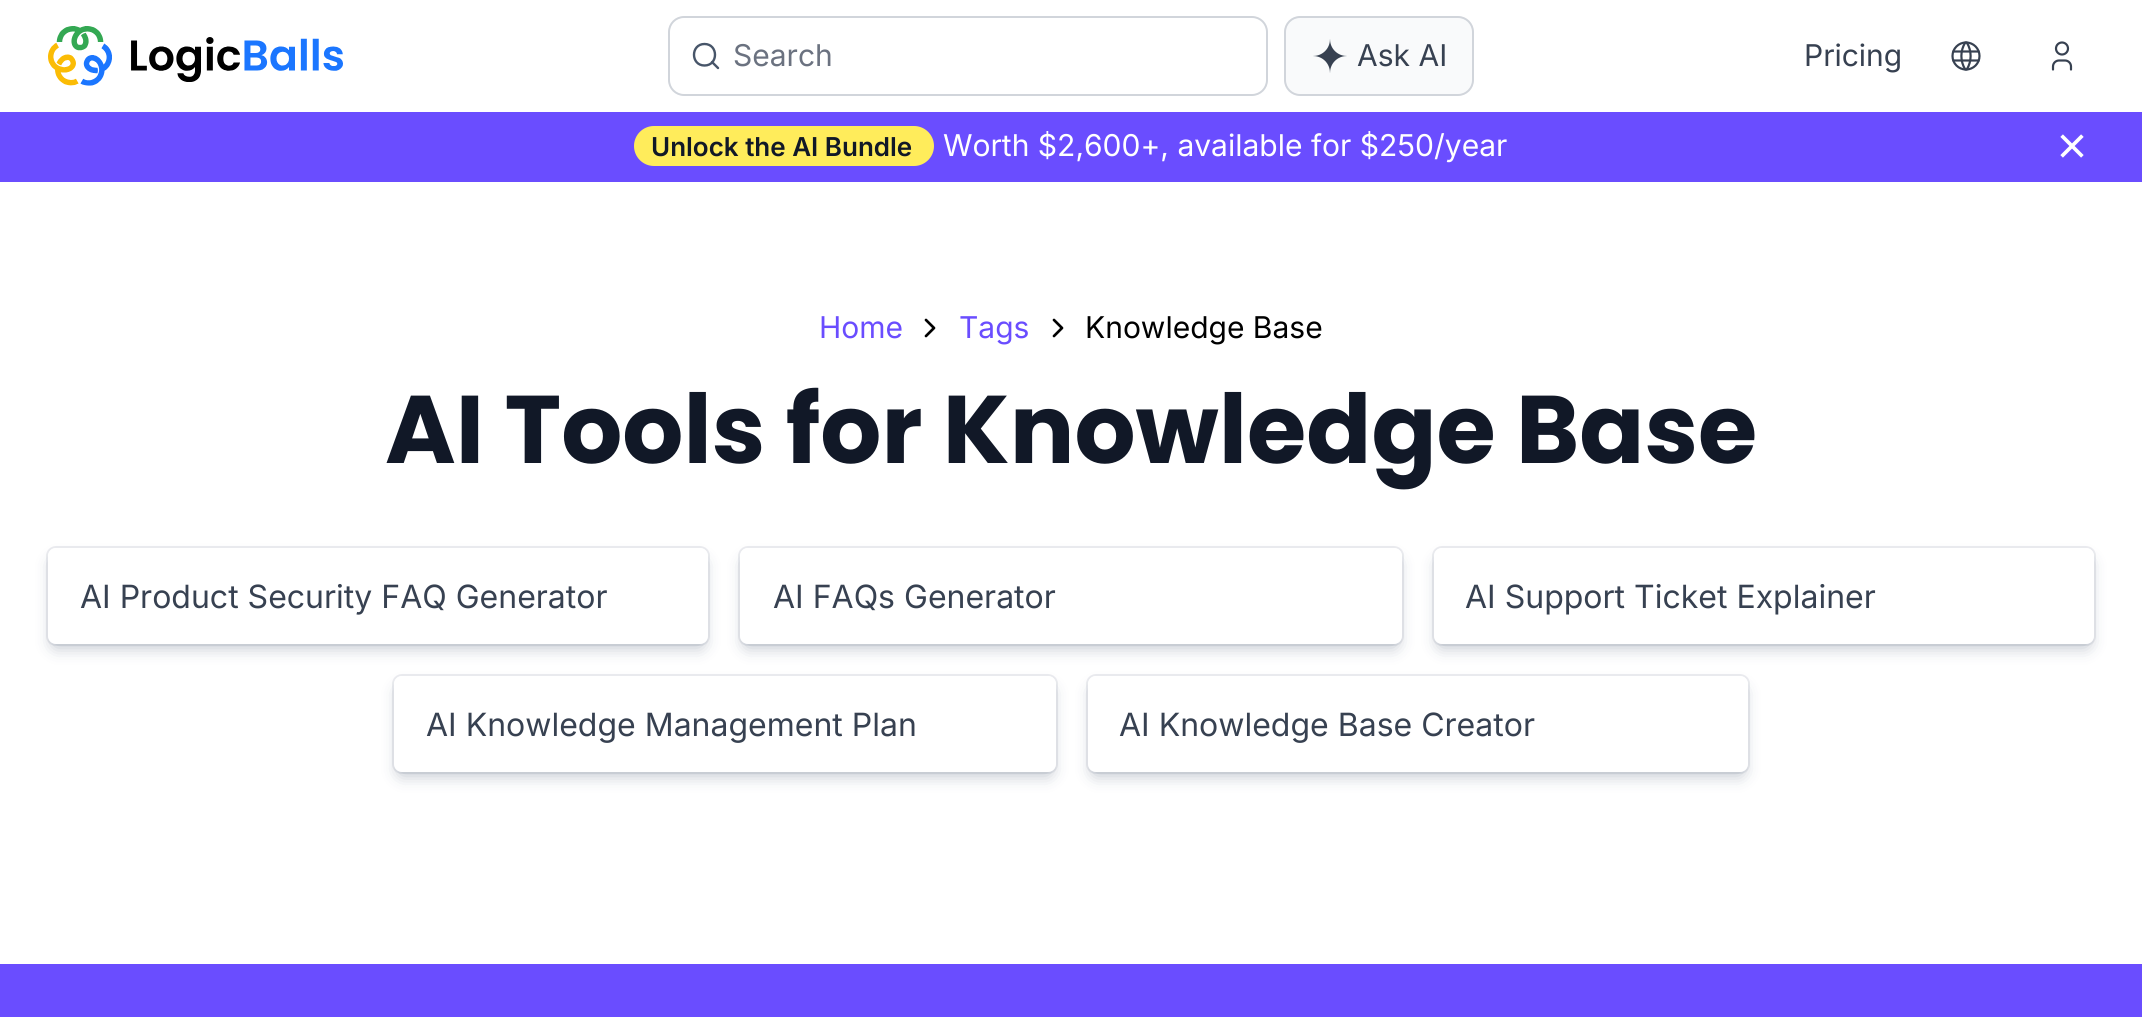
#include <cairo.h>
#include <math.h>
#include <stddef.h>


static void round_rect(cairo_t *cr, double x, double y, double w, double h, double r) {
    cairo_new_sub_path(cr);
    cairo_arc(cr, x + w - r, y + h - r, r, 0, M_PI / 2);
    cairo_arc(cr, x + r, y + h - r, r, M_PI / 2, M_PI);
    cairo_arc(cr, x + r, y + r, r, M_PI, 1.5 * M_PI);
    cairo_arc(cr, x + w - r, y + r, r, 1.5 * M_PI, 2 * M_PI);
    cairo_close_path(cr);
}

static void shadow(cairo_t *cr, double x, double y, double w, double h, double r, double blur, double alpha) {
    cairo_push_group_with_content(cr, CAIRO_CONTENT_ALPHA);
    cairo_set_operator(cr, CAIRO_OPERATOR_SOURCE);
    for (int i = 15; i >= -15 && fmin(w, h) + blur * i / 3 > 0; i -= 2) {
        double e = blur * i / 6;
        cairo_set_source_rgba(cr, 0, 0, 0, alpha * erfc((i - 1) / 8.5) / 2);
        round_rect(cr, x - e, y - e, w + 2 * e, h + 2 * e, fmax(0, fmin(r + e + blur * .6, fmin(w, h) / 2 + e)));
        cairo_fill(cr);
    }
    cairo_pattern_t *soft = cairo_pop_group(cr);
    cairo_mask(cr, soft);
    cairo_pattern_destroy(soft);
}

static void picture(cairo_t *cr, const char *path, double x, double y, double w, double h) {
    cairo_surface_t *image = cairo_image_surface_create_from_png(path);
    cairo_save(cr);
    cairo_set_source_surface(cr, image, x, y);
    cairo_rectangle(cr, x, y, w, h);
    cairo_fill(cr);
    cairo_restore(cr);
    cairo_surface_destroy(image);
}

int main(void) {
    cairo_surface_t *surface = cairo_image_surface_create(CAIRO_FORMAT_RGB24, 2142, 1017);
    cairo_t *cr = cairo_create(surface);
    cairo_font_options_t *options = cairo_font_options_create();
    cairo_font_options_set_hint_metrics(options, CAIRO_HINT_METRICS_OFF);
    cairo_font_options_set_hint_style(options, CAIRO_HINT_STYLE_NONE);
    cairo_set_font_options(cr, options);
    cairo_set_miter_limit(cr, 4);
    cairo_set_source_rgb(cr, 1, 1, 1);
    cairo_paint(cr);
    picture(cr, "img1.png", 48, 26, 295, 60);
    cairo_new_path(cr);
    cairo_move_to(cr, 704.5, 65.5);
    cairo_curve_to(cr, 718.5, 65.5, 718.5, 44, 704.5, 44);
    cairo_curve_to(cr, 690.5, 44, 690.5, 65.5, 704.5, 65.5);
    cairo_close_path(cr);
    cairo_move_to(cr, 718, 68);
    cairo_line_to(cr, 712, 62);
    cairo_set_source_rgb(cr, 0.278, 0.333, 0.412);
    cairo_set_line_width(cr, 2.4);
    cairo_set_line_cap(cr, CAIRO_LINE_CAP_ROUND);
    cairo_set_line_join(cr, CAIRO_LINE_JOIN_ROUND);
    cairo_stroke(cr);
    round_rect(cr, 669, 17, 598, 78, 15);
    cairo_set_source_rgb(cr, 0.82, 0.835, 0.859);
    cairo_set_line_width(cr, 2);
    cairo_set_line_cap(cr, CAIRO_LINE_CAP_BUTT);
    cairo_set_line_join(cr, CAIRO_LINE_JOIN_MITER);
    cairo_stroke(cr);
    cairo_select_font_face(cr, "Inter", CAIRO_FONT_SLANT_NORMAL, CAIRO_FONT_WEIGHT_NORMAL);
    cairo_set_font_size(cr, 30);
    cairo_set_source_rgb(cr, 0.42, 0.447, 0.502);
    cairo_move_to(cr, 733, 66);
    cairo_show_text(cr, "Search");
    cairo_set_source_rgb(cr, 0.976, 0.98, 0.984);
    round_rect(cr, 1285, 17, 188, 78, 15);
    cairo_fill_preserve(cr);
    cairo_set_source_rgb(cr, 0.82, 0.835, 0.859);
    cairo_stroke(cr);
    picture(cr, "img2.png", 1313, 39, 34, 34);
    cairo_set_source_rgb(cr, 0.216, 0.255, 0.318);
    cairo_move_to(cr, 1357, 66);
    cairo_show_text(cr, "Ask AI");
    cairo_move_to(cr, 1804, 66);
    cairo_show_text(cr, "Pricing");
    picture(cr, "img3.png", 1951, 41, 30, 30);
    picture(cr, "img4.png", 2051, 41, 22, 30);
    cairo_set_source_rgb(cr, 0.416, 0.302, 1);
    cairo_rectangle(cr, 0, 112, 2142, 70);
    cairo_fill(cr);
    cairo_set_source_rgb(cr, 1, 0.925, 0.357);
    round_rect(cr, 634, 126, 300, 40, 20);
    cairo_fill(cr);
    cairo_select_font_face(cr, "Inter SemiBold", CAIRO_FONT_SLANT_NORMAL, CAIRO_FONT_WEIGHT_NORMAL);
    cairo_set_font_size(cr, 26);
    cairo_set_source_rgb(cr, 0.067, 0.094, 0.153);
    cairo_move_to(cr, 651, 156);
    cairo_show_text(cr, "Unlock the AI Bundle");
    cairo_select_font_face(cr, "Inter", CAIRO_FONT_SLANT_NORMAL, CAIRO_FONT_WEIGHT_NORMAL);
    cairo_set_font_size(cr, 30);
    cairo_set_source_rgb(cr, 1, 1, 1);
    cairo_move_to(cr, 943, 156);
    cairo_show_text(cr, "Worth $2,600+, available for $250/year");
    picture(cr, "img5.png", 2060, 134, 24, 24);
    cairo_set_source_rgb(cr, 0.416, 0.302, 1);
    cairo_move_to(cr, 819, 338);
    cairo_show_text(cr, "Home");
    cairo_new_path(cr);
    cairo_move_to(cr, 926, 320);
    cairo_line_to(cr, 934, 328);
    cairo_line_to(cr, 926, 336);
    cairo_set_source_rgb(cr, 0, 0, 0);
    cairo_set_line_width(cr, 2.7);
    cairo_set_line_cap(cr, CAIRO_LINE_CAP_ROUND);
    cairo_set_line_join(cr, CAIRO_LINE_JOIN_ROUND);
    cairo_stroke(cr);
    cairo_set_source_rgb(cr, 0.416, 0.302, 1);
    cairo_move_to(cr, 959, 338);
    cairo_show_text(cr, "Tags");
    cairo_new_path(cr);
    cairo_move_to(cr, 1054, 320);
    cairo_line_to(cr, 1062, 328);
    cairo_line_to(cr, 1054, 336);
    cairo_set_source_rgb(cr, 0, 0, 0);
    cairo_stroke(cr);
    cairo_move_to(cr, 1085, 338);
    cairo_show_text(cr, "Knowledge Base");
    cairo_select_font_face(cr, "Poppins", CAIRO_FONT_SLANT_NORMAL, CAIRO_FONT_WEIGHT_BOLD);
    cairo_set_font_size(cr, 96);
    cairo_set_source_rgb(cr, 0.067, 0.094, 0.153);
    cairo_move_to(cr, 385, 463);
    cairo_show_text(cr, "AI Tools for Knowledge Base");
    round_rect(cr, 47, 547, 662, 98, 9);
    cairo_set_source_rgb(cr, 0.922, 0.929, 0.941);
    cairo_set_line_width(cr, 2);
    cairo_set_line_cap(cr, CAIRO_LINE_CAP_BUTT);
    cairo_set_line_join(cr, CAIRO_LINE_JOIN_MITER);
    cairo_stroke(cr);
    cairo_set_source_rgb(cr, 0.035, 0.118, 0.259);
    shadow(cr, 52, 560, 652, 88, 4, 8, 0.25);
    cairo_set_source_rgb(cr, 1, 1, 1);
    round_rect(cr, 48, 548, 660, 96, 8);
    cairo_fill(cr);
    cairo_select_font_face(cr, "Inter", CAIRO_FONT_SLANT_NORMAL, CAIRO_FONT_WEIGHT_NORMAL);
    cairo_set_font_size(cr, 32);
    cairo_set_source_rgb(cr, 0.216, 0.255, 0.318);
    cairo_move_to(cr, 80, 608);
    cairo_show_text(cr, "AI Product Security FAQ Generator");
    round_rect(cr, 739, 547, 664, 98, 9);
    cairo_set_source_rgb(cr, 0.922, 0.929, 0.941);
    cairo_stroke(cr);
    cairo_set_source_rgb(cr, 0.035, 0.118, 0.259);
    shadow(cr, 744, 560, 654, 88, 4, 8, 0.25);
    cairo_set_source_rgb(cr, 1, 1, 1);
    round_rect(cr, 740, 548, 662, 96, 8);
    cairo_fill(cr);
    cairo_set_source_rgb(cr, 0.216, 0.255, 0.318);
    cairo_move_to(cr, 773, 608);
    cairo_show_text(cr, "AI FAQs Generator");
    round_rect(cr, 1433, 547, 662, 98, 9);
    cairo_set_source_rgb(cr, 0.922, 0.929, 0.941);
    cairo_stroke(cr);
    cairo_set_source_rgb(cr, 0.035, 0.118, 0.259);
    shadow(cr, 1438, 560, 652, 88, 4, 8, 0.25);
    cairo_set_source_rgb(cr, 1, 1, 1);
    round_rect(cr, 1434, 548, 660, 96, 8);
    cairo_fill(cr);
    cairo_set_source_rgb(cr, 0.216, 0.255, 0.318);
    cairo_move_to(cr, 1465, 608);
    cairo_show_text(cr, "AI Support Ticket Explainer");
    round_rect(cr, 393, 675, 664, 98, 9);
    cairo_set_source_rgb(cr, 0.922, 0.929, 0.941);
    cairo_stroke(cr);
    cairo_set_source_rgb(cr, 0.035, 0.118, 0.259);
    shadow(cr, 398, 688, 654, 88, 4, 8, 0.25);
    cairo_set_source_rgb(cr, 1, 1, 1);
    round_rect(cr, 394, 676, 662, 96, 8);
    cairo_fill(cr);
    cairo_set_source_rgb(cr, 0.216, 0.255, 0.318);
    cairo_move_to(cr, 426, 736);
    cairo_show_text(cr, "AI Knowledge Management Plan");
    round_rect(cr, 1087, 675, 662, 98, 9);
    cairo_set_source_rgb(cr, 0.922, 0.929, 0.941);
    cairo_stroke(cr);
    cairo_set_source_rgb(cr, 0.035, 0.118, 0.259);
    shadow(cr, 1092, 688, 652, 88, 4, 8, 0.25);
    cairo_set_source_rgb(cr, 1, 1, 1);
    round_rect(cr, 1088, 676, 660, 96, 8);
    cairo_fill(cr);
    cairo_set_source_rgb(cr, 0.216, 0.255, 0.318);
    cairo_move_to(cr, 1119, 736);
    cairo_show_text(cr, "AI Knowledge Base Creator");
    cairo_set_source_rgb(cr, 0.416, 0.302, 1);
    cairo_rectangle(cr, 0, 964, 2142, 53);
    cairo_fill(cr);
    cairo_surface_write_to_png(surface, "page.png");
    cairo_font_options_destroy(options);
    cairo_destroy(cr);
    cairo_surface_destroy(surface);
    return 0;
}
